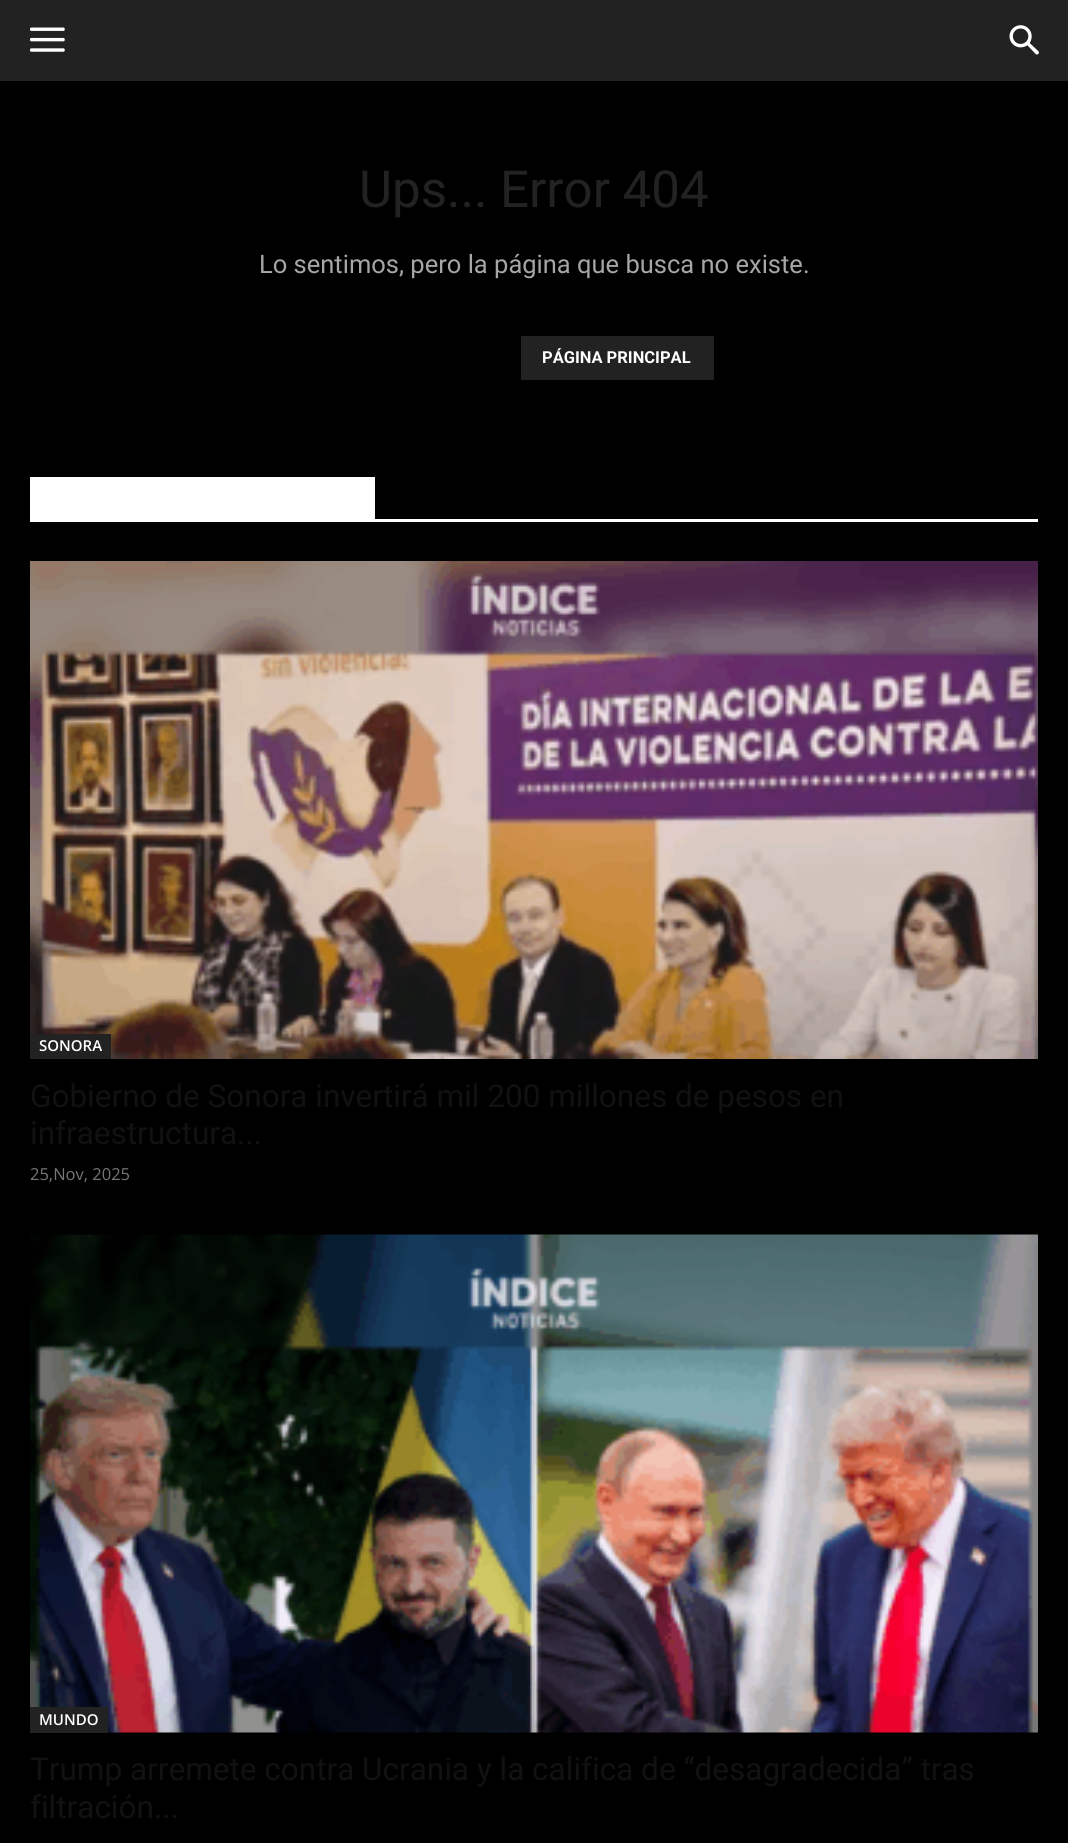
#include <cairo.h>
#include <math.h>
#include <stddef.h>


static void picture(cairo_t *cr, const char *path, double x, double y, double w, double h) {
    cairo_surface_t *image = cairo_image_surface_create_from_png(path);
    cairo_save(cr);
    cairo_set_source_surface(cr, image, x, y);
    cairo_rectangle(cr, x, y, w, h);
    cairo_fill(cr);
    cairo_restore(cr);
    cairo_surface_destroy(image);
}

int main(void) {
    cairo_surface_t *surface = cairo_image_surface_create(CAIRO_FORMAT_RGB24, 1068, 1843);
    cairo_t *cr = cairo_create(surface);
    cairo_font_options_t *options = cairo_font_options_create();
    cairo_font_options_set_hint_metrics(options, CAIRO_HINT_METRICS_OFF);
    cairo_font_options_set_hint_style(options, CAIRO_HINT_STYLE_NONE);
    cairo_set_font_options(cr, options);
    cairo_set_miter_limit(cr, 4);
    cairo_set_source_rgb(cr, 0, 0, 0);
    cairo_paint(cr);
    cairo_set_source_rgb(cr, 0.133, 0.133, 0.133);
    cairo_rectangle(cr, 0, 0, 1068, 81);
    cairo_fill(cr);
    picture(cr, "img1.png", 30, 27, 35, 25);
    picture(cr, "img2.png", 1009, 25, 30, 30);
    cairo_select_font_face(cr, "Roboto", CAIRO_FONT_SLANT_NORMAL, CAIRO_FONT_WEIGHT_NORMAL);
    cairo_set_font_size(cr, 51);
    cairo_move_to(cr, 359, 207);
    cairo_show_text(cr, "Ups... Error 404");
    cairo_set_font_size(cr, 25.5);
    cairo_set_source_rgb(cr, 0.651, 0.651, 0.651);
    cairo_move_to(cr, 259, 273);
    cairo_show_text(cr, "Lo sentimos, pero la página que busca no existe.");
    cairo_set_source_rgb(cr, 0.133, 0.133, 0.133);
    cairo_rectangle(cr, 521, 336, 193, 44);
    cairo_fill(cr);
    cairo_select_font_face(cr, "Roboto", CAIRO_FONT_SLANT_NORMAL, CAIRO_FONT_WEIGHT_BOLD);
    cairo_set_font_size(cr, 16.5);
    cairo_set_source_rgb(cr, 1, 1, 1);
    cairo_move_to(cr, 542, 363);
    cairo_show_text(cr, "PÁGINA PRINCIPAL");
    cairo_rectangle(cr, 30, 519, 1008, 3);
    cairo_fill(cr);
    cairo_rectangle(cr, 30, 477, 345, 42);
    cairo_fill(cr);
    picture(cr, "img3.png", 30, 561, 1008, 498);
    cairo_set_source_rgb(cr, 0.133, 0.133, 0.133);
    cairo_rectangle(cr, 30, 1034, 81, 25);
    cairo_fill(cr);
    cairo_select_font_face(cr, "Open Sans SemiBold", CAIRO_FONT_SLANT_NORMAL, CAIRO_FONT_WEIGHT_NORMAL);
    cairo_set_font_size(cr, 15);
    cairo_set_source_rgb(cr, 1, 1, 1);
    cairo_move_to(cr, 39, 1051);
    cairo_show_text(cr, "SONORA");
    cairo_select_font_face(cr, "Roboto", CAIRO_FONT_SLANT_NORMAL, CAIRO_FONT_WEIGHT_NORMAL);
    cairo_set_font_size(cr, 31.5);
    cairo_set_source_rgb(cr, 0.067, 0.067, 0.067);
    cairo_move_to(cr, 30, 1107);
    cairo_show_text(cr, "Gobierno de Sonora invertirá mil 200 millones de pesos en");
    cairo_move_to(cr, 30, 1144);
    cairo_show_text(cr, "infraestructura...");
    cairo_select_font_face(cr, "Open Sans", CAIRO_FONT_SLANT_NORMAL, CAIRO_FONT_WEIGHT_NORMAL);
    cairo_set_font_size(cr, 16.5);
    cairo_set_source_rgb(cr, 0.463, 0.463, 0.463);
    cairo_move_to(cr, 30, 1180);
    cairo_show_text(cr, "25,Nov, 2025");
    picture(cr, "img4.png", 30, 1234, 1008, 499);
    cairo_set_source_rgb(cr, 0.133, 0.133, 0.133);
    cairo_rectangle(cr, 30, 1707, 78, 26);
    cairo_fill(cr);
    cairo_select_font_face(cr, "Open Sans SemiBold", CAIRO_FONT_SLANT_NORMAL, CAIRO_FONT_WEIGHT_NORMAL);
    cairo_set_font_size(cr, 15);
    cairo_set_source_rgb(cr, 1, 1, 1);
    cairo_move_to(cr, 39, 1725);
    cairo_show_text(cr, "MUNDO");
    cairo_select_font_face(cr, "Roboto", CAIRO_FONT_SLANT_NORMAL, CAIRO_FONT_WEIGHT_NORMAL);
    cairo_set_font_size(cr, 31.5);
    cairo_set_source_rgb(cr, 0.067, 0.067, 0.067);
    cairo_move_to(cr, 30, 1780);
    cairo_show_text(cr, "Trump arremete contra Ucrania y la califica de “desagradecida” tras");
    cairo_move_to(cr, 30, 1818);
    cairo_show_text(cr, "filtración...");
    cairo_surface_write_to_png(surface, "page.png");
    cairo_font_options_destroy(options);
    cairo_destroy(cr);
    cairo_surface_destroy(surface);
    return 0;
}
